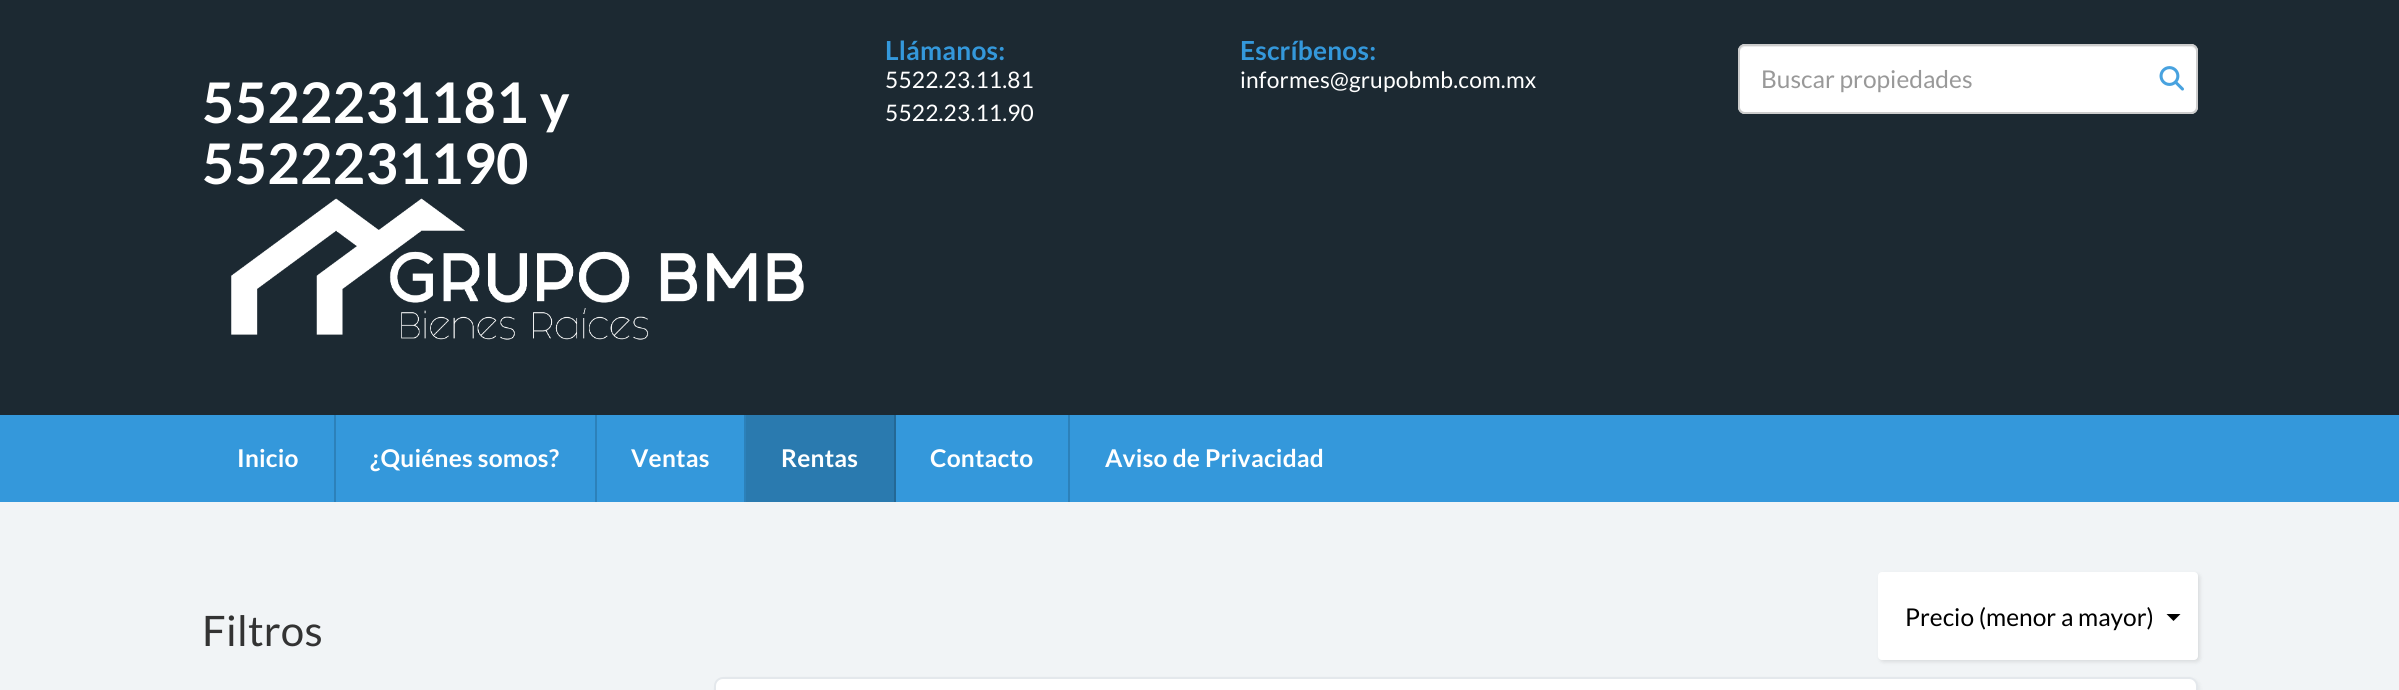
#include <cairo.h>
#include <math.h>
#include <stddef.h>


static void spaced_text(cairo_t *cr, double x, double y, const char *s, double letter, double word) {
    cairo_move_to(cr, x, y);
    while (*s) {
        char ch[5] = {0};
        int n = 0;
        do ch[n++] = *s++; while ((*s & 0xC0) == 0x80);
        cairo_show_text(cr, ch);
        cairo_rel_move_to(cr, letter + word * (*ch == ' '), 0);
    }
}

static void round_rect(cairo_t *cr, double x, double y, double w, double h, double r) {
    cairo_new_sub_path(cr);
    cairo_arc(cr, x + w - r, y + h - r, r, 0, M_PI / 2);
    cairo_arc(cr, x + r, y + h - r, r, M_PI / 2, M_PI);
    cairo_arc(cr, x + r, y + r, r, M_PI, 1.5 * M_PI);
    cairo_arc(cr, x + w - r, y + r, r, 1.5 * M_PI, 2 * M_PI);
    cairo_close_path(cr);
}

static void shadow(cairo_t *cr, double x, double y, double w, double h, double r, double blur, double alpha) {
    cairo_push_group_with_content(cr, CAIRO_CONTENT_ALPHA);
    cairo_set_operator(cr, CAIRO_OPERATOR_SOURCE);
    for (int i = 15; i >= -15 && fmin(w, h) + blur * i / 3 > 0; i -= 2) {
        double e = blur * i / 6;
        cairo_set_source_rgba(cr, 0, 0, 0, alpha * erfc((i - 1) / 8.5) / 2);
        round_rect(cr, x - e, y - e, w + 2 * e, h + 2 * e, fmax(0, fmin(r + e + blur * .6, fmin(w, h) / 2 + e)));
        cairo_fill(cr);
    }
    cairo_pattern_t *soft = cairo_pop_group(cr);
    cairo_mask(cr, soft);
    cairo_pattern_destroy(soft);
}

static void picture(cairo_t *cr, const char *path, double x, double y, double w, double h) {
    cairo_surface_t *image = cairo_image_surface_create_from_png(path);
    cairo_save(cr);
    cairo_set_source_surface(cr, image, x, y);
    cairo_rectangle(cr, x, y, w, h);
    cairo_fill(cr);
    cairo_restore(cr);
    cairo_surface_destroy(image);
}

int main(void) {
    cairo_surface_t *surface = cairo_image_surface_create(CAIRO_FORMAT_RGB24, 2399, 690);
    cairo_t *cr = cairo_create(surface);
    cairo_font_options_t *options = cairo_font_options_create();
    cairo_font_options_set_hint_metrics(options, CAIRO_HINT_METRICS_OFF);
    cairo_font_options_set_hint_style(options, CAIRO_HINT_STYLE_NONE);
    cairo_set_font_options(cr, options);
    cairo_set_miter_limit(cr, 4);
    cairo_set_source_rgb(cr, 0.945, 0.957, 0.961);
    cairo_paint(cr);
    cairo_set_source_rgb(cr, 0.11, 0.161, 0.196);
    cairo_rectangle(cr, 0, 0, 2399, 415);
    cairo_fill(cr);
    cairo_select_font_face(cr, "Lato", CAIRO_FONT_SLANT_NORMAL, CAIRO_FONT_WEIGHT_BOLD);
    cairo_set_font_size(cr, 56);
    cairo_set_source_rgb(cr, 1, 1, 1);
    spaced_text(cr, 202, 123, "5522231181 y", 0.2, 0);
    spaced_text(cr, 202, 184, "5522231190", 0.2, 0);
    picture(cr, "img1.png", 231, 198, 573, 142);
    cairo_set_font_size(cr, 26.25);
    cairo_set_source_rgb(cr, 0.204, 0.596, 0.859);
    spaced_text(cr, 885, 60, "Llámanos:", 0.2, 0);
    cairo_select_font_face(cr, "Lato", CAIRO_FONT_SLANT_NORMAL, CAIRO_FONT_WEIGHT_NORMAL);
    cairo_set_font_size(cr, 22.75);
    cairo_set_source_rgb(cr, 1, 1, 1);
    spaced_text(cr, 885, 88, "5522.23.11.81", 0.2, 0);
    spaced_text(cr, 885, 121, "5522.23.11.90", 0.2, 0);
    cairo_select_font_face(cr, "Lato", CAIRO_FONT_SLANT_NORMAL, CAIRO_FONT_WEIGHT_BOLD);
    cairo_set_font_size(cr, 26.25);
    cairo_set_source_rgb(cr, 0.204, 0.596, 0.859);
    spaced_text(cr, 1240, 60, "Escríbenos:", 0.2, 0);
    cairo_select_font_face(cr, "Lato", CAIRO_FONT_SLANT_NORMAL, CAIRO_FONT_WEIGHT_NORMAL);
    cairo_set_font_size(cr, 22.75);
    cairo_set_source_rgb(cr, 1, 1, 1);
    spaced_text(cr, 1240, 88, "informes@grupobmb.com.mx", 0.2, 0);
    round_rect(cr, 1738, 44, 460, 70, 7);
    cairo_fill(cr);
    cairo_set_source_rgb(cr, 0.925, 0.925, 0.925);
    cairo_new_path(cr);
    cairo_move_to(cr, 1745, 47);
    cairo_line_to(cr, 2191, 47);
    cairo_curve_to(cr, 2194, 47, 2196, 50, 2196, 52);
    cairo_curve_to(cr, 2196, 49, 2194, 46, 2191, 46);
    cairo_line_to(cr, 1745, 46);
    cairo_curve_to(cr, 1742, 46, 1740, 49, 1740, 52);
    cairo_curve_to(cr, 1740, 50, 1742, 47, 1745, 47);
    cairo_close_path(cr);
    cairo_fill(cr);
    round_rect(cr, 1739, 45, 458, 68, 6);
    cairo_set_source_rgb(cr, 0.8, 0.8, 0.8);
    cairo_stroke(cr);
    cairo_set_font_size(cr, 24.5);
    cairo_set_source_rgb(cr, 0.6, 0.6, 0.6);
    cairo_move_to(cr, 1761, 88);
    cairo_show_text(cr, "Buscar propiedades");
    picture(cr, "img2.png", 2159, 66, 25, 25);
    cairo_set_source_rgb(cr, 0.204, 0.596, 0.859);
    cairo_rectangle(cr, 0, 415, 2399, 87);
    cairo_fill(cr);
    cairo_set_source_rgb(cr, 0.173, 0.506, 0.729);
    cairo_rectangle(cr, 334, 415, 2, 87);
    cairo_fill(cr);
    cairo_select_font_face(cr, "Lato", CAIRO_FONT_SLANT_NORMAL, CAIRO_FONT_WEIGHT_BOLD);
    cairo_set_source_rgb(cr, 1, 1, 1);
    spaced_text(cr, 237, 467, "Inicio", 0.2, 0);
    cairo_set_source_rgb(cr, 0.173, 0.506, 0.729);
    cairo_rectangle(cr, 595, 415, 2, 87);
    cairo_fill(cr);
    cairo_set_source_rgb(cr, 1, 1, 1);
    spaced_text(cr, 370, 467, "¿Quiénes somos?", 0.2, 0);
    cairo_set_source_rgb(cr, 0.173, 0.506, 0.729);
    cairo_rectangle(cr, 744, 415, 2, 87);
    cairo_fill(cr);
    cairo_set_source_rgb(cr, 1, 1, 1);
    spaced_text(cr, 631, 467, "Ventas", 0.2, 0);
    cairo_set_source_rgb(cr, 0.165, 0.478, 0.686);
    cairo_rectangle(cr, 746, 415, 148, 87);
    cairo_fill(cr);
    cairo_set_source_rgb(cr, 0.141, 0.408, 0.584);
    cairo_rectangle(cr, 894, 415, 2, 87);
    cairo_fill(cr);
    cairo_set_source_rgb(cr, 1, 1, 1);
    spaced_text(cr, 781, 467, "Rentas", 0.2, 0);
    cairo_set_source_rgb(cr, 0.173, 0.506, 0.729);
    cairo_rectangle(cr, 1068, 415, 2, 87);
    cairo_fill(cr);
    cairo_set_source_rgb(cr, 1, 1, 1);
    spaced_text(cr, 930, 467, "Contacto", 0.2, 0);
    spaced_text(cr, 1105, 467, "Aviso de Privacidad", 0.2, 0);
    cairo_select_font_face(cr, "Lato", CAIRO_FONT_SLANT_NORMAL, CAIRO_FONT_WEIGHT_NORMAL);
    cairo_set_font_size(cr, 42);
    cairo_set_source_rgb(cr, 0.2, 0.2, 0.2);
    spaced_text(cr, 202, 646, "Filtros", 0.2, 0);
    cairo_set_source_rgb(cr, 0, 0, 0);
    shadow(cr, 1880, 574, 320, 88, 4, 2, 0.1);
    cairo_set_source_rgb(cr, 1, 1, 1);
    round_rect(cr, 1878, 572, 320, 88, 4);
    cairo_fill(cr);
    cairo_set_font_size(cr, 24.5);
    cairo_set_source_rgb(cr, 0, 0, 0);
    cairo_move_to(cr, 1905, 626);
    cairo_show_text(cr, "Precio (menor a mayor)");
    cairo_new_path(cr);
    cairo_move_to(cr, 2166.5, 614);
    cairo_line_to(cr, 2180.5, 614);
    cairo_line_to(cr, 2173.5, 621);
    cairo_close_path(cr);
    cairo_fill(cr);
    cairo_set_source_rgb(cr, 0, 0, 0);
    shadow(cr, 716, 679, 1484, 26, 9, 2, 0.05);
    cairo_set_source_rgb(cr, 1, 1, 1);
    round_rect(cr, 715, 678, 1482, 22, 8);
    cairo_fill_preserve(cr);
    cairo_set_source_rgb(cr, 0.894, 0.91, 0.922);
    cairo_stroke(cr);
    cairo_surface_write_to_png(surface, "page.png");
    cairo_font_options_destroy(options);
    cairo_destroy(cr);
    cairo_surface_destroy(surface);
    return 0;
}
